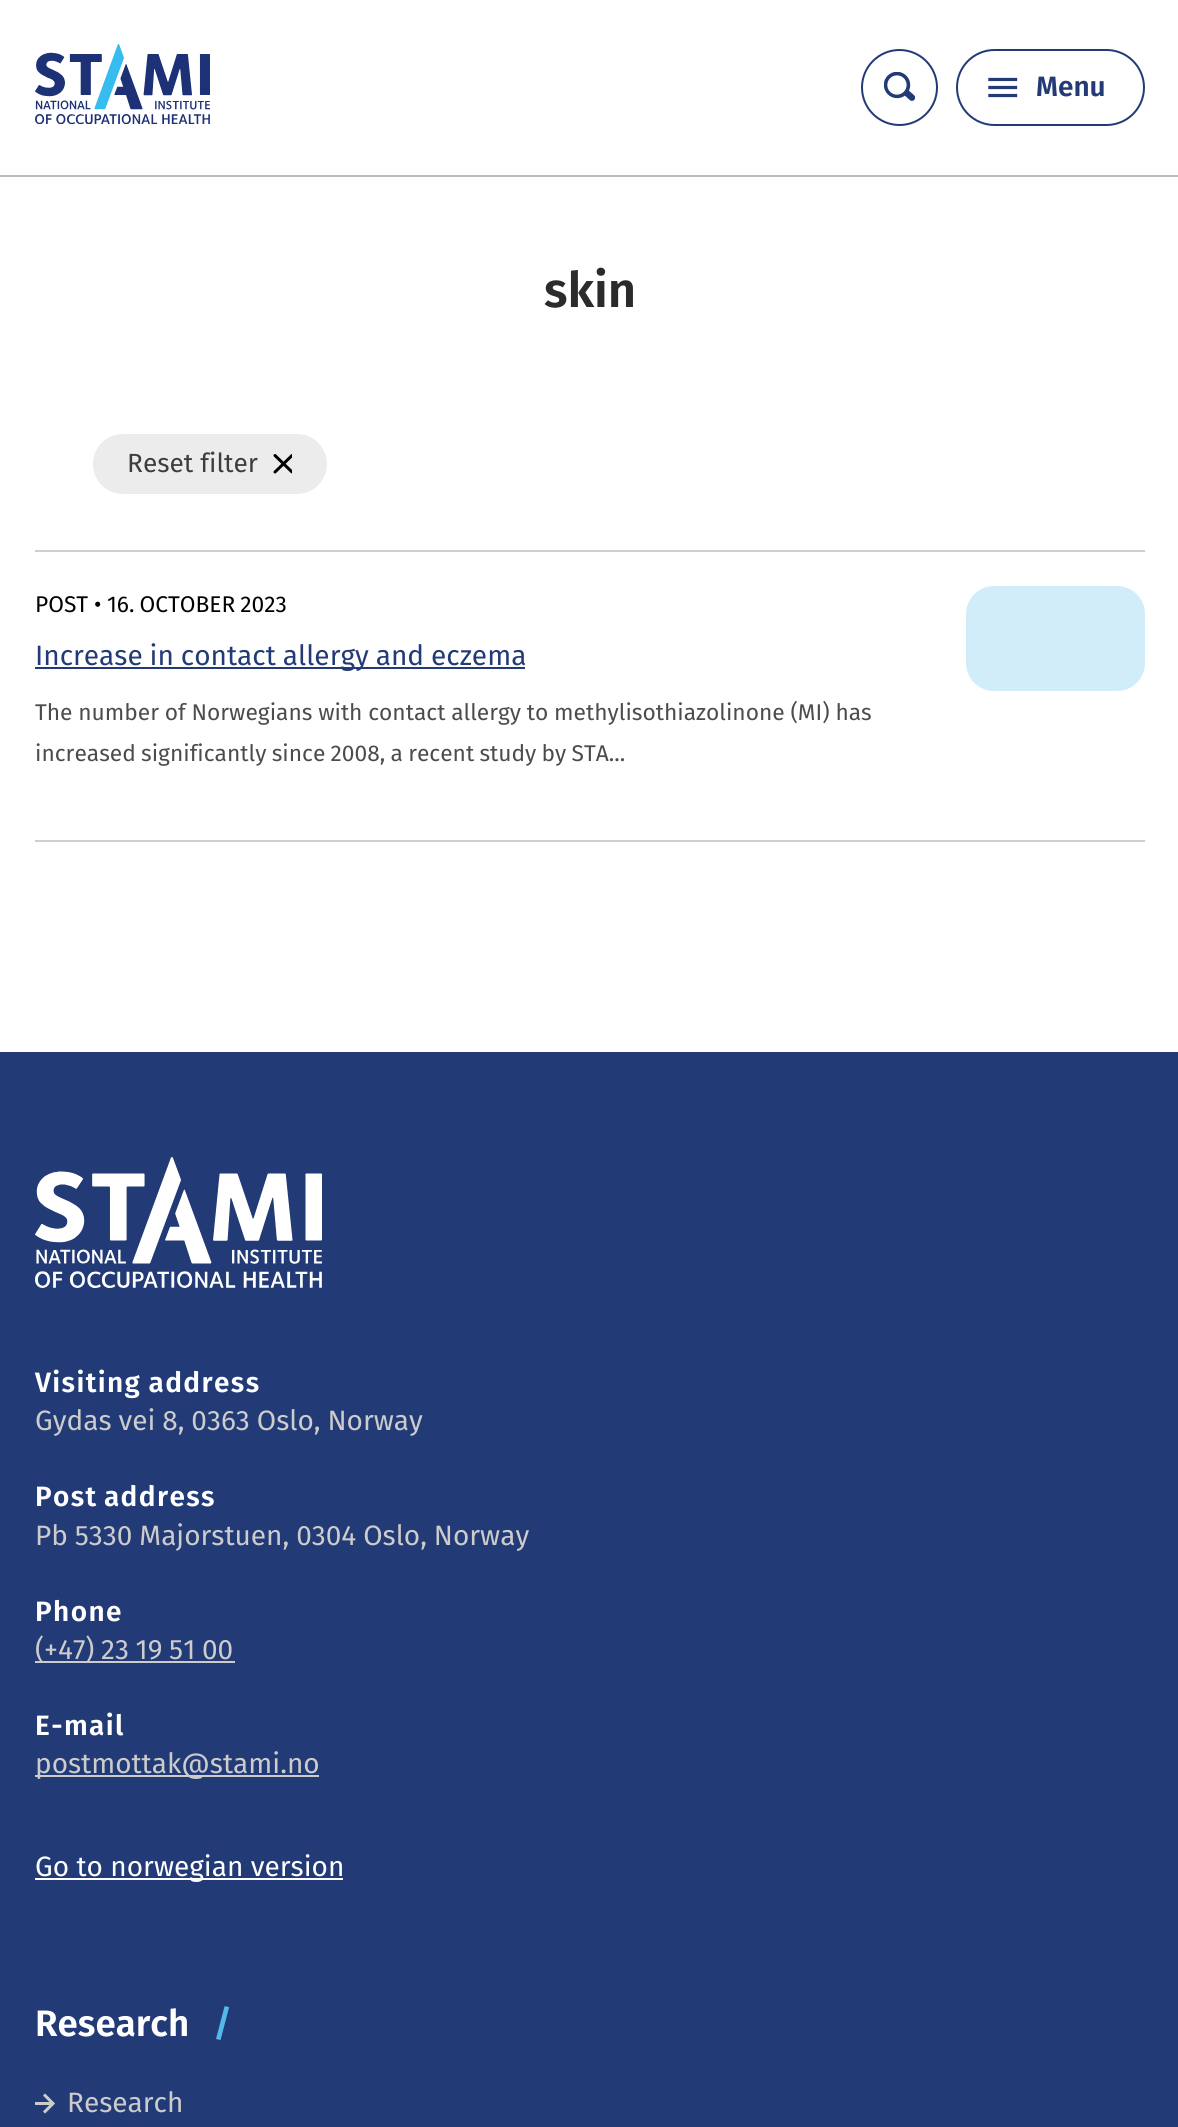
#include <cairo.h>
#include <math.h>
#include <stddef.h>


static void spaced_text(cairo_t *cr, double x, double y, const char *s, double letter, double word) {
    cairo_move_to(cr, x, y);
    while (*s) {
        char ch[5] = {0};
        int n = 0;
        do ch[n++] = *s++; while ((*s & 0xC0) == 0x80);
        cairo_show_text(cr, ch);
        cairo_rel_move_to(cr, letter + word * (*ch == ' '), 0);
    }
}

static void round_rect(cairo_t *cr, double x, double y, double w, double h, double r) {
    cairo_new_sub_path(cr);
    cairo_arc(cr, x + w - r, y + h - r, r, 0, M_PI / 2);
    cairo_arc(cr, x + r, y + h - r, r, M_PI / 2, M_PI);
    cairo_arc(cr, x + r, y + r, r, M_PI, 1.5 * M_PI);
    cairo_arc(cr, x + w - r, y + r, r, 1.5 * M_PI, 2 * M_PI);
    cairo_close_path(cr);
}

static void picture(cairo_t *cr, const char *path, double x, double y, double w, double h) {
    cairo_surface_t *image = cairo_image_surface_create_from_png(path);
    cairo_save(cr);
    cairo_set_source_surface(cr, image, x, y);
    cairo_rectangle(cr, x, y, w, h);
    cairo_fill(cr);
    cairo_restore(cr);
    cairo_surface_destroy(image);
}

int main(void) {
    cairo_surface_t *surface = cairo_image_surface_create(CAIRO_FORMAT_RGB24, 1178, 2127);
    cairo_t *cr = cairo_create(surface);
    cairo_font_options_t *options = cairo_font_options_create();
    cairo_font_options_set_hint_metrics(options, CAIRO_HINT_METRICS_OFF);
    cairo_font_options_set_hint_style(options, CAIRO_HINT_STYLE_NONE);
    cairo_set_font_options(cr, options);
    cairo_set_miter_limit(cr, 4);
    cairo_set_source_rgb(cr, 1, 1, 1);
    cairo_paint(cr);
    cairo_set_source_rgb(cr, 0.737, 0.737, 0.737);
    cairo_rectangle(cr, 0, 175, 1178, 2);
    cairo_fill(cr);
    picture(cr, "img1.png", 35, 44, 175, 80);
    cairo_arc(cr, 899.5, 87.5, 37.5, 0, 2 * M_PI);
    cairo_set_source_rgb(cr, 0.133, 0.227, 0.463);
    cairo_stroke(cr);
    picture(cr, "img2.png", 884, 72, 31, 29);
    round_rect(cr, 957, 50, 187, 75, 37.5);
    cairo_stroke(cr);
    picture(cr, "img3.png", 988, 77, 30, 21);
    cairo_select_font_face(cr, "Fira Sans SemiBold", CAIRO_FONT_SLANT_NORMAL, CAIRO_FONT_WEIGHT_NORMAL);
    cairo_set_font_size(cr, 28);
    cairo_move_to(cr, 1036, 96);
    cairo_show_text(cr, "Menu");
    cairo_set_font_size(cr, 49);
    cairo_set_source_rgb(cr, 0.169, 0.169, 0.169);
    cairo_move_to(cr, 544, 307);
    cairo_show_text(cr, "skin");
    cairo_set_source_rgb(cr, 0.925, 0.925, 0.925);
    round_rect(cr, 93, 434, 234, 60, 30);
    cairo_fill(cr);
    cairo_select_font_face(cr, "Fira Sans", CAIRO_FONT_SLANT_NORMAL, CAIRO_FONT_WEIGHT_NORMAL);
    cairo_set_font_size(cr, 26.25);
    cairo_set_source_rgb(cr, 0.239, 0.239, 0.239);
    cairo_move_to(cr, 127, 472);
    cairo_show_text(cr, "Reset filter");
    cairo_save(cr);
    cairo_rectangle(cr, 273, 453, 19, 21);
    cairo_clip(cr);
    cairo_new_path(cr);
    cairo_move_to(cr, 292, 455.5);
    cairo_line_to(cr, 275, 472);
    cairo_move_to(cr, 292, 472);
    cairo_line_to(cr, 275, 455.5);
    cairo_set_source_rgb(cr, 0, 0, 0);
    cairo_set_line_width(cr, 3);
    cairo_set_line_cap(cr, CAIRO_LINE_CAP_ROUND);
    cairo_stroke(cr);
    cairo_restore(cr);
    cairo_set_source_rgb(cr, 0.812, 0.812, 0.812);
    cairo_rectangle(cr, 35, 550, 1110, 2);
    cairo_fill(cr);
    cairo_rectangle(cr, 35, 840, 1110, 2);
    cairo_fill(cr);
    cairo_set_font_size(cr, 22.75);
    cairo_set_source_rgb(cr, 0, 0, 0);
    cairo_move_to(cr, 35, 612);
    cairo_show_text(cr, "POST");
    cairo_move_to(cr, 94, 612);
    cairo_show_text(cr, "•");
    spaced_text(cr, 107, 612, "16. OCTOBER 2023", 0, -1);
    cairo_set_source_rgb(cr, 0.133, 0.227, 0.463);
    cairo_rectangle(cr, 35, 667, 490, 2);
    cairo_fill(cr);
    cairo_set_font_size(cr, 28);
    spaced_text(cr, 35, 665, "Increase in contact allergy and eczema", 0, -0.5);
    cairo_set_font_size(cr, 22.75);
    cairo_set_source_rgb(cr, 0.298, 0.298, 0.298);
    spaced_text(cr, 35, 720, "The number of Norwegians with contact allergy to methylisothiazolinone (MI) has", 0, -0.25);
    spaced_text(cr, 35, 761, "increased significantly since 2008, a recent study by STA...", 0, -0.75);
    cairo_set_source_rgb(cr, 0.82, 0.929, 0.976);
    round_rect(cr, 966, 586, 179, 105, 28);
    cairo_fill(cr);
    cairo_set_source_rgb(cr, 0.133, 0.227, 0.463);
    cairo_rectangle(cr, 0, 1052, 1178, 1075);
    cairo_fill(cr);
    picture(cr, "img4.png", 35, 1157, 287, 131);
    cairo_select_font_face(cr, "Fira Sans SemiBold", CAIRO_FONT_SLANT_NORMAL, CAIRO_FONT_WEIGHT_NORMAL);
    cairo_set_font_size(cr, 28);
    cairo_set_source_rgb(cr, 1, 1, 1);
    spaced_text(cr, 35, 1392, "Visiting address", 1.4, -1);
    cairo_select_font_face(cr, "Fira Sans", CAIRO_FONT_SLANT_NORMAL, CAIRO_FONT_WEIGHT_NORMAL);
    cairo_set_source_rgb(cr, 0.8, 0.8, 0.8);
    spaced_text(cr, 35, 1430, "Gydas vei 8, 0363 Oslo, Norway", 0, -0.5);
    cairo_select_font_face(cr, "Fira Sans SemiBold", CAIRO_FONT_SLANT_NORMAL, CAIRO_FONT_WEIGHT_NORMAL);
    cairo_set_source_rgb(cr, 1, 1, 1);
    spaced_text(cr, 35, 1506, "Post address", 1.4, -2);
    cairo_select_font_face(cr, "Fira Sans", CAIRO_FONT_SLANT_NORMAL, CAIRO_FONT_WEIGHT_NORMAL);
    cairo_set_source_rgb(cr, 0.8, 0.8, 0.8);
    spaced_text(cr, 35, 1545, "Pb 5330 Majorstuen, 0304 Oslo, Norway", 0, -0.5);
    cairo_select_font_face(cr, "Fira Sans SemiBold", CAIRO_FONT_SLANT_NORMAL, CAIRO_FONT_WEIGHT_NORMAL);
    cairo_set_source_rgb(cr, 1, 1, 1);
    spaced_text(cr, 35, 1621, "Phone", 1.4, 0);
    cairo_set_source_rgb(cr, 0.8, 0.8, 0.8);
    cairo_rectangle(cr, 35, 1661, 200, 2);
    cairo_fill(cr);
    cairo_select_font_face(cr, "Fira Sans", CAIRO_FONT_SLANT_NORMAL, CAIRO_FONT_WEIGHT_NORMAL);
    spaced_text(cr, 35, 1659, "(+47) 23 19 51 00", 0, -0.75);
    cairo_select_font_face(cr, "Fira Sans SemiBold", CAIRO_FONT_SLANT_NORMAL, CAIRO_FONT_WEIGHT_NORMAL);
    cairo_set_source_rgb(cr, 1, 1, 1);
    spaced_text(cr, 35, 1735, "E-mail", 1.4, 0);
    cairo_set_source_rgb(cr, 0.8, 0.8, 0.8);
    cairo_rectangle(cr, 35, 1775, 284, 2);
    cairo_fill(cr);
    cairo_select_font_face(cr, "Fira Sans", CAIRO_FONT_SLANT_NORMAL, CAIRO_FONT_WEIGHT_NORMAL);
    cairo_move_to(cr, 35, 1773);
    cairo_show_text(cr, "postmottak@stami.no");
    cairo_set_source_rgb(cr, 1, 1, 1);
    cairo_rectangle(cr, 35, 1878, 308, 2);
    cairo_fill(cr);
    cairo_move_to(cr, 35, 1876);
    cairo_show_text(cr, "Go to norwegian version");
    cairo_select_font_face(cr, "Fira Sans SemiBold", CAIRO_FONT_SLANT_NORMAL, CAIRO_FONT_WEIGHT_NORMAL);
    cairo_set_font_size(cr, 36.75);
    cairo_move_to(cr, 35, 2036);
    cairo_show_text(cr, "Research");
    cairo_set_source_rgb(cr, 0.318, 0.729, 0.91);
    cairo_move_to(cr, 213, 2036);
    cairo_show_text(cr, "/");
    cairo_set_source_rgb(cr, 0.8, 0.8, 0.8);
    cairo_rectangle(cr, 35, 2102, 18, 3);
    cairo_fill(cr);
    cairo_new_path(cr);
    cairo_move_to(cr, 44, 2094.5);
    cairo_line_to(cr, 53, 2103.5);
    cairo_line_to(cr, 44, 2112.5);
    cairo_set_line_width(cr, 3);
    cairo_stroke(cr);
    cairo_select_font_face(cr, "Fira Sans", CAIRO_FONT_SLANT_NORMAL, CAIRO_FONT_WEIGHT_NORMAL);
    cairo_set_font_size(cr, 28);
    cairo_move_to(cr, 67, 2112);
    cairo_show_text(cr, "Research");
    cairo_surface_write_to_png(surface, "page.png");
    cairo_font_options_destroy(options);
    cairo_destroy(cr);
    cairo_surface_destroy(surface);
    return 0;
}
